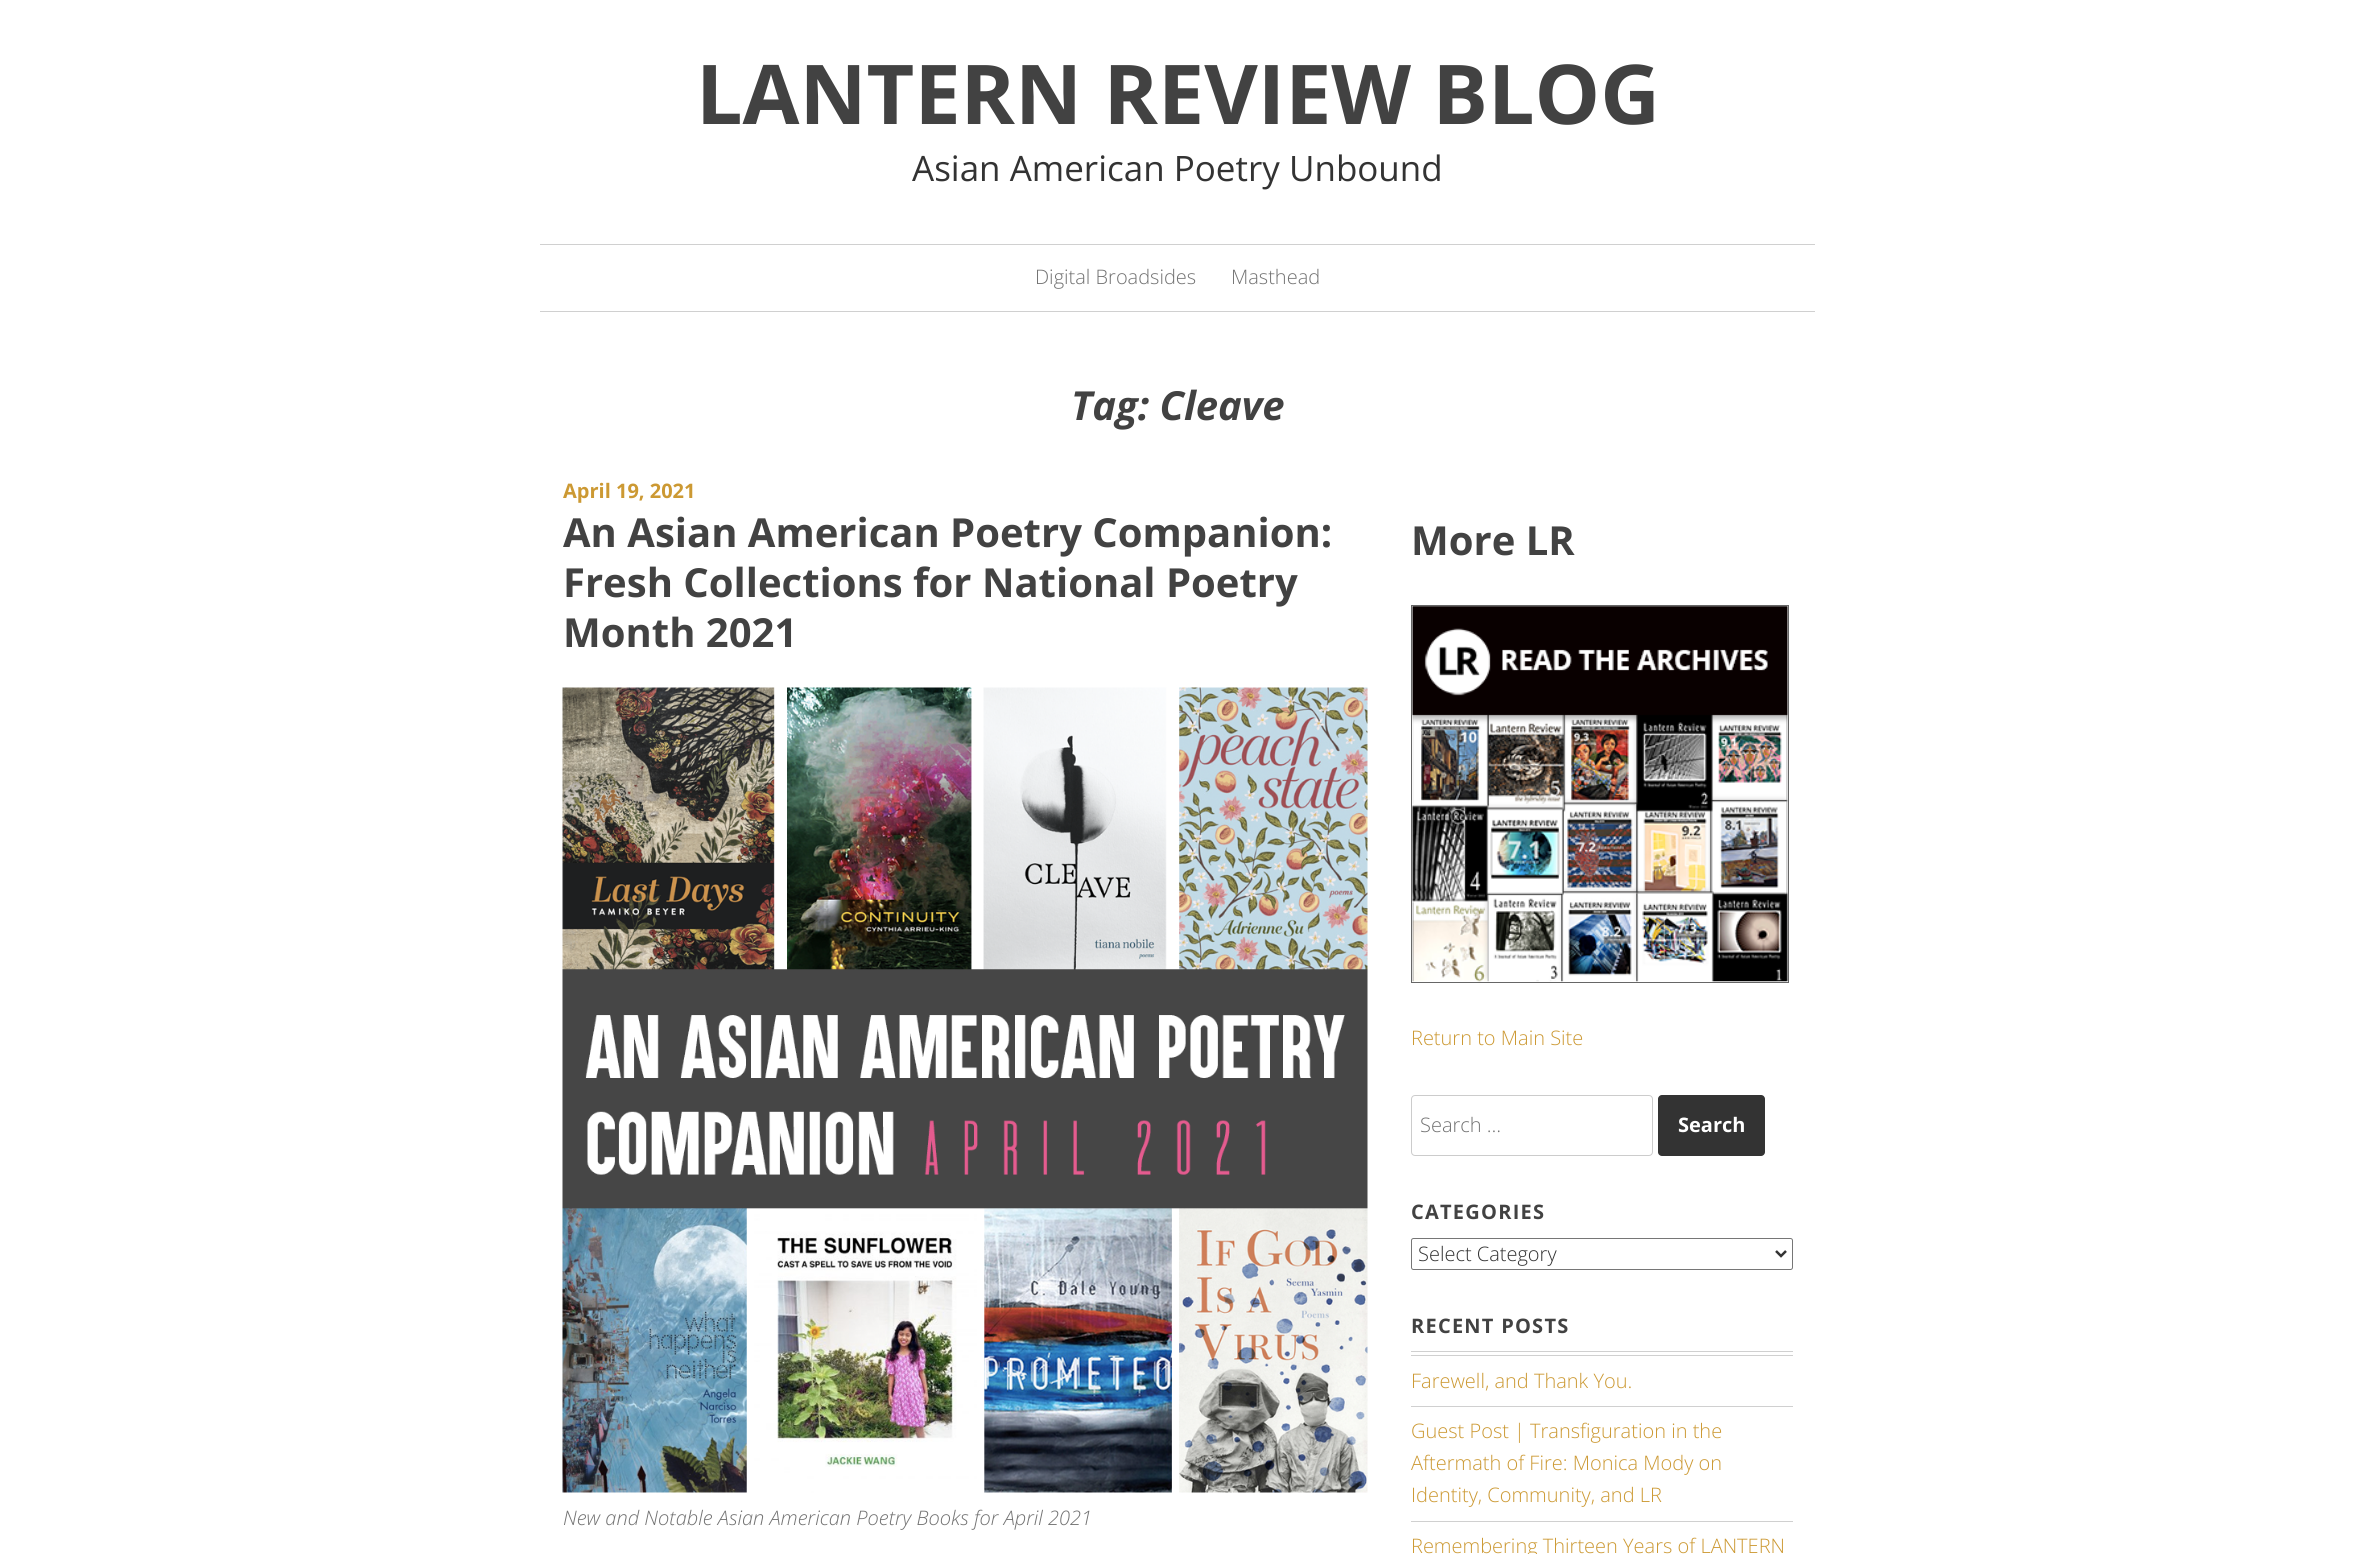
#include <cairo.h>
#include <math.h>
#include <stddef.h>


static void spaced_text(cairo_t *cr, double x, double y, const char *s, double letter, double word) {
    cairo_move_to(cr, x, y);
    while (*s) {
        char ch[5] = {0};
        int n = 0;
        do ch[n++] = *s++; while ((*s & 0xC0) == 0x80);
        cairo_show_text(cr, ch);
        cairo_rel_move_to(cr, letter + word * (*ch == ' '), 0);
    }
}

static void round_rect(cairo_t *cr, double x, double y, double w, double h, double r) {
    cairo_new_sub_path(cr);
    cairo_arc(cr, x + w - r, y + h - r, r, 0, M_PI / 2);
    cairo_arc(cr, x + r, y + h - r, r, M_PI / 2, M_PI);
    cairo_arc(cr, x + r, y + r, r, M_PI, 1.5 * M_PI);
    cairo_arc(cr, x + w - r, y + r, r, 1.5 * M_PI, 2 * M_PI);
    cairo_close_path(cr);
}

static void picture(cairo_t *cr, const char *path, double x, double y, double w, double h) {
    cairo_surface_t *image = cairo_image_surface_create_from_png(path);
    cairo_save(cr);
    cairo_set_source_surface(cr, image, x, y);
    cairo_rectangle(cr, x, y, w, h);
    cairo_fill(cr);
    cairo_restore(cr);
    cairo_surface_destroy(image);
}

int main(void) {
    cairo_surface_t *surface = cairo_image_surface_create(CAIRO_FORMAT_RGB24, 2355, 1554);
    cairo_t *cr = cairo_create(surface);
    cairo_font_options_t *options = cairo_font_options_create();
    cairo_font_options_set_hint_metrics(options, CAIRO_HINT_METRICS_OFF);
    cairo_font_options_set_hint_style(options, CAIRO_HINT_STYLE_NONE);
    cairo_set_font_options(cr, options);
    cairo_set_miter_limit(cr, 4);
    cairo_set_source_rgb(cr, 1, 1, 1);
    cairo_paint(cr);
    cairo_select_font_face(cr, "Open Sans", CAIRO_FONT_SLANT_NORMAL, CAIRO_FONT_WEIGHT_BOLD);
    cairo_set_font_size(cr, 82.5);
    cairo_set_source_rgb(cr, 0.259, 0.259, 0.259);
    cairo_move_to(cr, 696, 124);
    cairo_show_text(cr, "LANTERN REVIEW BLOG");
    cairo_select_font_face(cr, "Open Sans", CAIRO_FONT_SLANT_NORMAL, CAIRO_FONT_WEIGHT_NORMAL);
    cairo_set_font_size(cr, 35);
    cairo_set_source_rgb(cr, 0.2, 0.2, 0.2);
    cairo_move_to(cr, 912, 181);
    cairo_show_text(cr, "Asian American Poetry Unbound");
    cairo_set_source_rgb(cr, 0.816, 0.816, 0.816);
    cairo_rectangle(cr, 540, 244, 1275, 1);
    cairo_fill(cr);
    cairo_rectangle(cr, 540, 311, 1275, 1);
    cairo_fill(cr);
    cairo_select_font_face(cr, "Open Sans Light", CAIRO_FONT_SLANT_NORMAL, CAIRO_FONT_WEIGHT_NORMAL);
    cairo_set_font_size(cr, 20);
    cairo_set_source_rgb(cr, 0.447, 0.447, 0.447);
    cairo_move_to(cr, 1035, 284);
    cairo_show_text(cr, "Digital Broadsides");
    cairo_move_to(cr, 1231, 284);
    cairo_show_text(cr, "Masthead");
    cairo_select_font_face(cr, "Open Sans", CAIRO_FONT_SLANT_ITALIC, CAIRO_FONT_WEIGHT_BOLD);
    cairo_set_font_size(cr, 40);
    cairo_set_source_rgb(cr, 0.259, 0.259, 0.259);
    cairo_move_to(cr, 1071, 420);
    cairo_show_text(cr, "Tag: Cleave");
    cairo_select_font_face(cr, "Open Sans", CAIRO_FONT_SLANT_NORMAL, CAIRO_FONT_WEIGHT_BOLD);
    cairo_set_font_size(cr, 20);
    cairo_set_source_rgb(cr, 0.8, 0.6, 0.2);
    cairo_move_to(cr, 563, 498);
    cairo_show_text(cr, "April 19, 2021");
    cairo_set_font_size(cr, 40);
    cairo_set_source_rgb(cr, 0.259, 0.259, 0.259);
    cairo_move_to(cr, 563, 547);
    cairo_show_text(cr, "An Asian American Poetry Companion:");
    cairo_move_to(cr, 563, 597);
    cairo_show_text(cr, "Fresh Collections for National Poetry");
    cairo_move_to(cr, 563, 647);
    cairo_show_text(cr, "Month 2021");
    picture(cr, "img1.png", 562, 687, 806, 806);
    cairo_select_font_face(cr, "Open Sans Light", CAIRO_FONT_SLANT_ITALIC, CAIRO_FONT_WEIGHT_NORMAL);
    cairo_set_font_size(cr, 20);
    cairo_set_source_rgb(cr, 0.447, 0.447, 0.447);
    cairo_move_to(cr, 563, 1525);
    cairo_show_text(cr, "New and Notable Asian American Poetry Books for April 2021");
    cairo_select_font_face(cr, "Open Sans", CAIRO_FONT_SLANT_NORMAL, CAIRO_FONT_WEIGHT_BOLD);
    cairo_set_font_size(cr, 40);
    cairo_set_source_rgb(cr, 0.259, 0.259, 0.259);
    cairo_move_to(cr, 1411, 555);
    cairo_show_text(cr, "More LR");
    cairo_rectangle(cr, 1411.5, 605.5, 377, 377);
    cairo_set_source_rgb(cr, 0.4, 0.4, 0.4);
    cairo_set_line_width(cr, 1);
    cairo_stroke(cr);
    picture(cr, "img2.png", 1412, 606, 376, 376);
    cairo_select_font_face(cr, "Open Sans Light", CAIRO_FONT_SLANT_NORMAL, CAIRO_FONT_WEIGHT_NORMAL);
    cairo_set_font_size(cr, 20);
    cairo_set_source_rgb(cr, 0.8, 0.6, 0.2);
    cairo_move_to(cr, 1411, 1045);
    cairo_show_text(cr, "Return to Main Site");
    round_rect(cr, 1411.5, 1095.5, 241, 60, 3.5);
    cairo_set_source_rgb(cr, 0.8, 0.8, 0.8);
    cairo_stroke(cr);
    cairo_set_source_rgb(cr, 0.447, 0.447, 0.447);
    cairo_move_to(cr, 1420, 1132);
    cairo_show_text(cr, "Search …");
    cairo_set_source_rgb(cr, 0.2, 0.2, 0.2);
    round_rect(cr, 1658, 1095, 107, 61, 4);
    cairo_fill(cr);
    cairo_select_font_face(cr, "Open Sans", CAIRO_FONT_SLANT_NORMAL, CAIRO_FONT_WEIGHT_BOLD);
    cairo_set_source_rgb(cr, 1, 1, 1);
    cairo_move_to(cr, 1678, 1132);
    cairo_show_text(cr, "Search");
    cairo_set_source_rgb(cr, 0.259, 0.259, 0.259);
    spaced_text(cr, 1411, 1219, "CATEGORIES", 1.25, 0);
    round_rect(cr, 1411.5, 1238.5, 381, 31, 2);
    cairo_set_source_rgb(cr, 0.463, 0.463, 0.463);
    cairo_stroke(cr);
    cairo_new_path(cr);
    cairo_move_to(cr, 1776, 1251);
    cairo_line_to(cr, 1781, 1256);
    cairo_line_to(cr, 1786, 1251);
    cairo_set_source_rgb(cr, 0.2, 0.2, 0.2);
    cairo_set_line_width(cr, 2.5);
    cairo_stroke(cr);
    cairo_select_font_face(cr, "Open Sans Light", CAIRO_FONT_SLANT_NORMAL, CAIRO_FONT_WEIGHT_NORMAL);
    cairo_move_to(cr, 1418, 1261);
    cairo_show_text(cr, "Select Category");
    cairo_select_font_face(cr, "Open Sans", CAIRO_FONT_SLANT_NORMAL, CAIRO_FONT_WEIGHT_BOLD);
    cairo_set_source_rgb(cr, 0.259, 0.259, 0.259);
    spaced_text(cr, 1411, 1333, "RECENT POSTS", 1.25, 0);
    cairo_set_source_rgb(cr, 0.816, 0.816, 0.816);
    cairo_rectangle(cr, 1411, 1351, 382, 1);
    cairo_fill(cr);
    cairo_rectangle(cr, 1411, 1355, 382, 1);
    cairo_fill(cr);
    cairo_select_font_face(cr, "Open Sans Light", CAIRO_FONT_SLANT_NORMAL, CAIRO_FONT_WEIGHT_NORMAL);
    cairo_set_source_rgb(cr, 0.8, 0.6, 0.2);
    cairo_move_to(cr, 1411, 1388);
    cairo_show_text(cr, "Farewell, and Thank You.");
    cairo_set_source_rgb(cr, 0.816, 0.816, 0.816);
    cairo_rectangle(cr, 1411, 1406, 382, 1);
    cairo_fill(cr);
    cairo_set_source_rgb(cr, 0.8, 0.6, 0.2);
    cairo_move_to(cr, 1411, 1438);
    cairo_show_text(cr, "Guest Post | Transfiguration in the");
    cairo_move_to(cr, 1411, 1470);
    cairo_show_text(cr, "Aftermath of Fire: Monica Mody on");
    cairo_move_to(cr, 1411, 1502);
    cairo_show_text(cr, "Identity, Community, and LR");
    cairo_set_source_rgb(cr, 0.816, 0.816, 0.816);
    cairo_rectangle(cr, 1411, 1521, 382, 1);
    cairo_fill(cr);
    cairo_set_source_rgb(cr, 0.8, 0.6, 0.2);
    cairo_move_to(cr, 1411, 1553);
    cairo_show_text(cr, "Remembering Thirteen Years of LANTERN");
    cairo_surface_write_to_png(surface, "page.png");
    cairo_font_options_destroy(options);
    cairo_destroy(cr);
    cairo_surface_destroy(surface);
    return 0;
}
